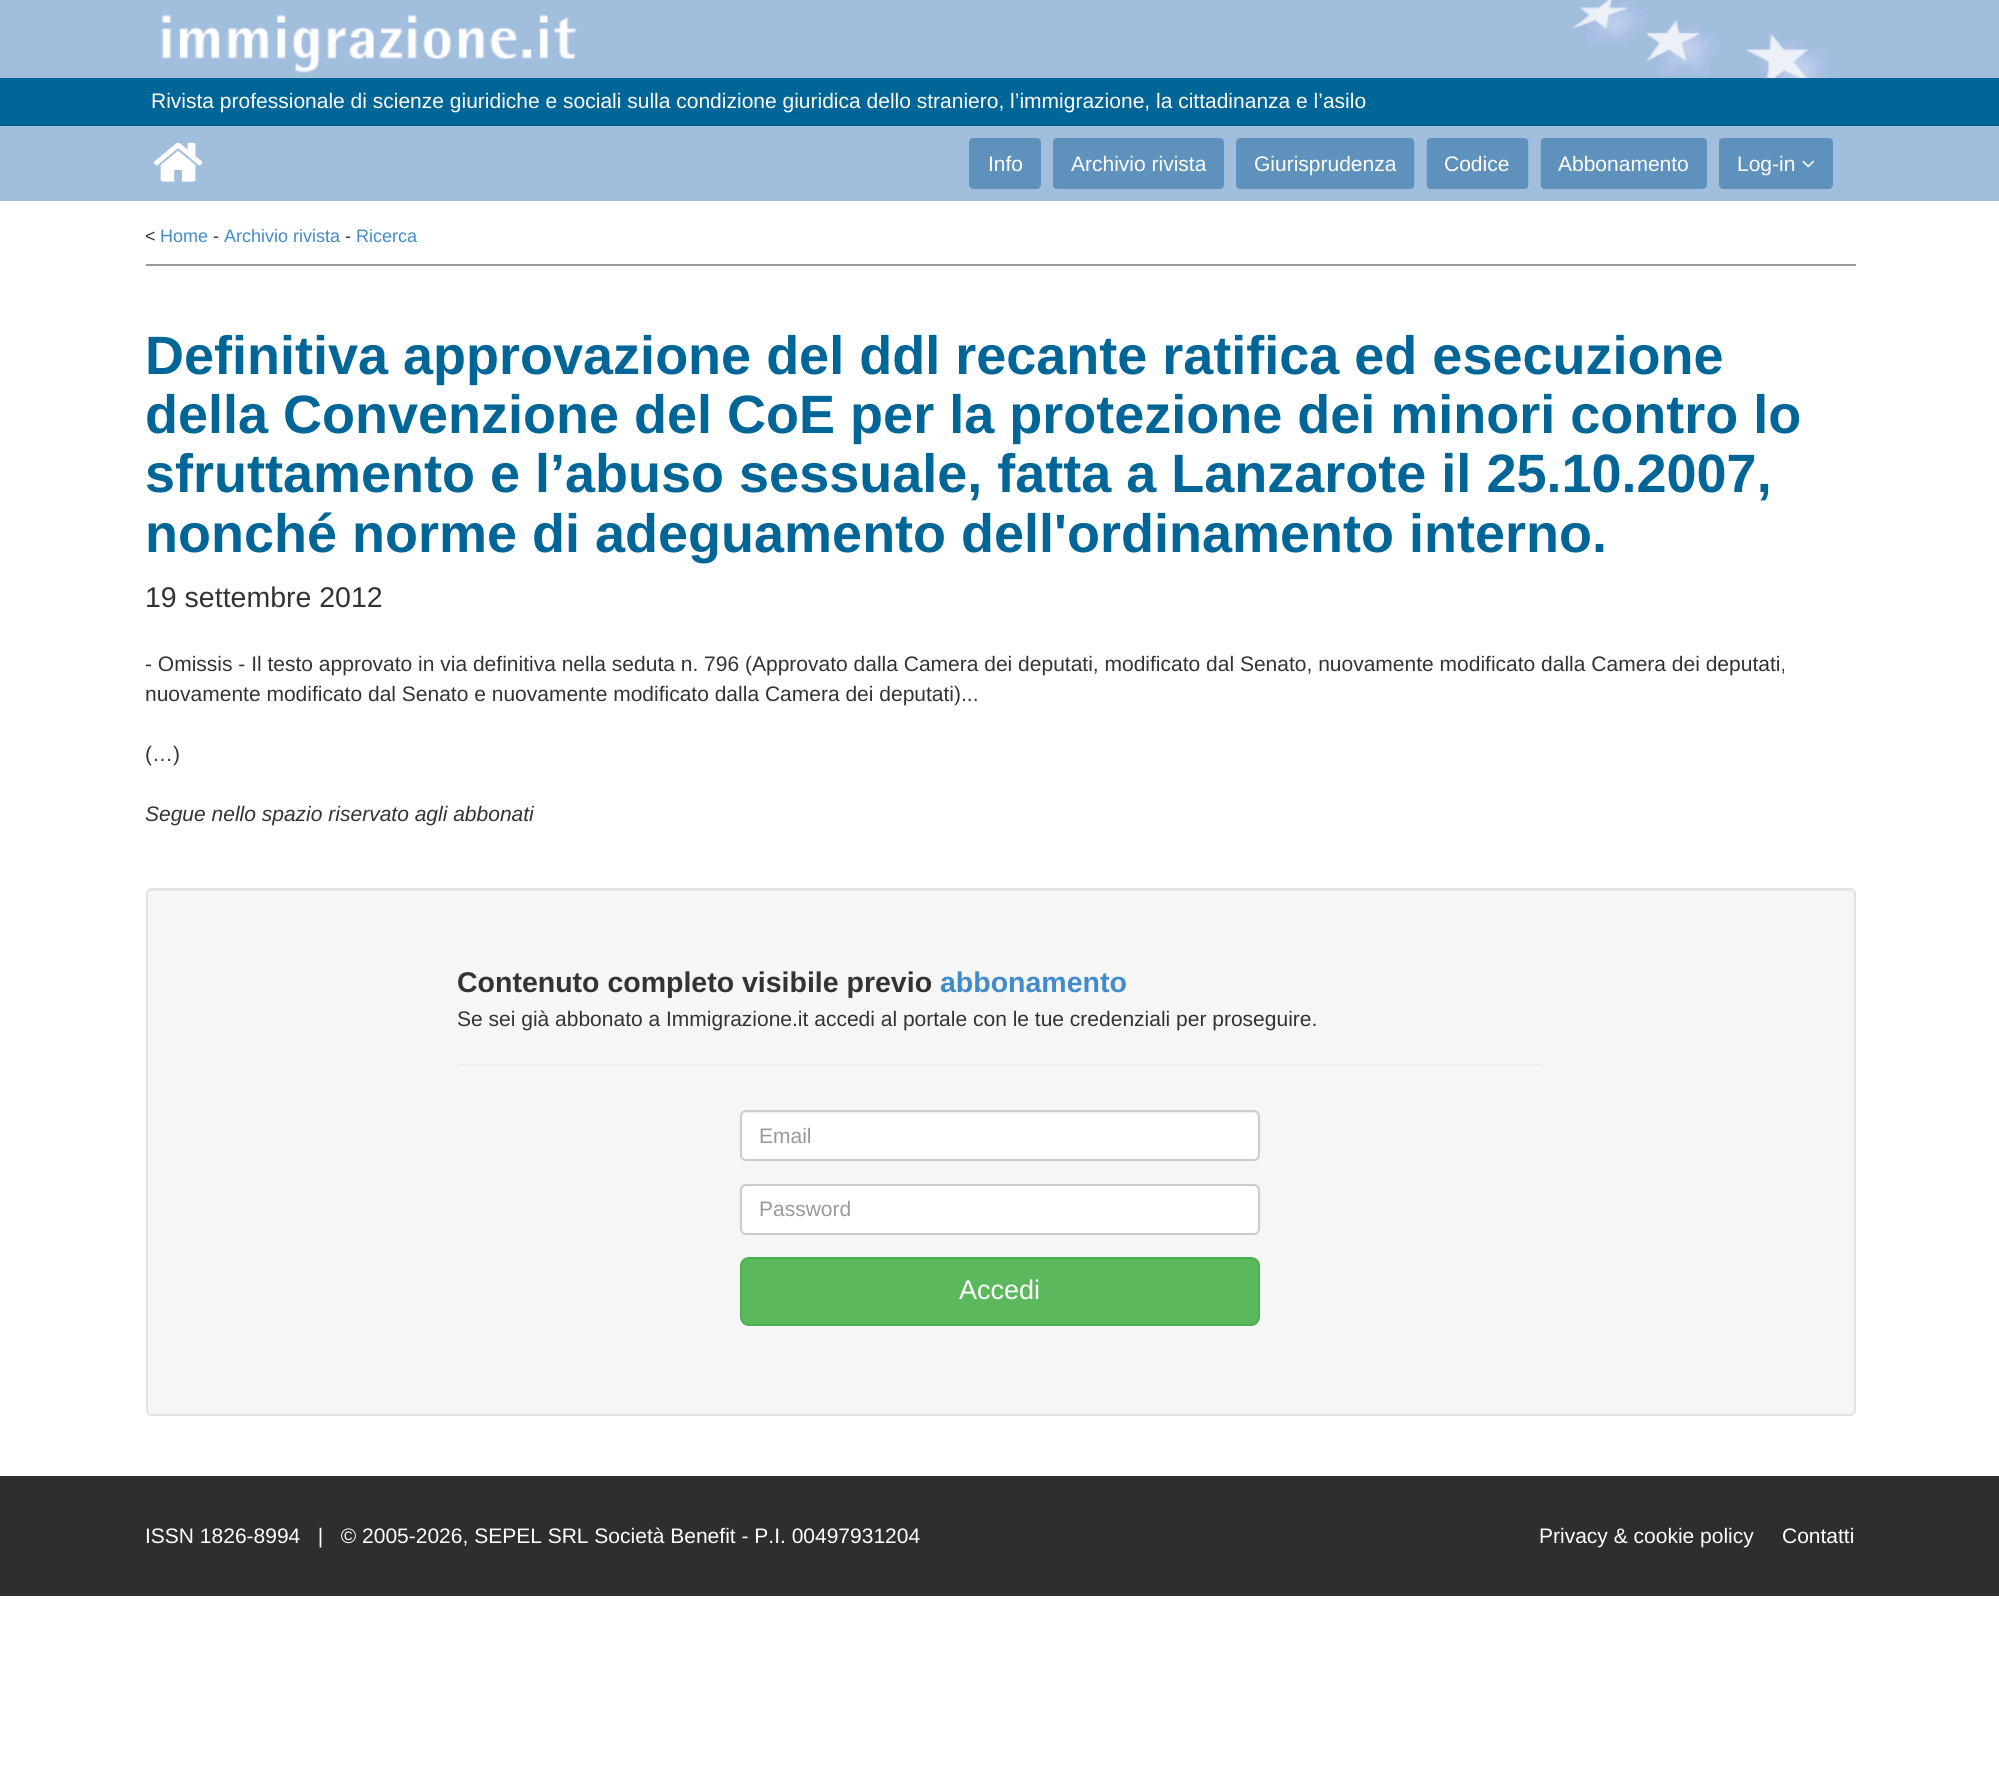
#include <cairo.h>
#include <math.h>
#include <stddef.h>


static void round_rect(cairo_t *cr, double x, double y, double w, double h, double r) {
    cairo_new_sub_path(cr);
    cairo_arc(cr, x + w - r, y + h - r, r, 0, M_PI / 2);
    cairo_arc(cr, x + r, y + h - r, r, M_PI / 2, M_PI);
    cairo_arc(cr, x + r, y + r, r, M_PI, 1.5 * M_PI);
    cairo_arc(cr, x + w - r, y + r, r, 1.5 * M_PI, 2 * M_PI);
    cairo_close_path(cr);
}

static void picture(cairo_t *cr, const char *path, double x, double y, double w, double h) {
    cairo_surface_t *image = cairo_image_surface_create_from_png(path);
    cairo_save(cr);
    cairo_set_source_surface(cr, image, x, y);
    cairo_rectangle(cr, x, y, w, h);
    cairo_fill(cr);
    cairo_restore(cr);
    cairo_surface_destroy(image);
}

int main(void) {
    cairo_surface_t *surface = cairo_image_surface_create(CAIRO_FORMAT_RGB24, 1999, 1773);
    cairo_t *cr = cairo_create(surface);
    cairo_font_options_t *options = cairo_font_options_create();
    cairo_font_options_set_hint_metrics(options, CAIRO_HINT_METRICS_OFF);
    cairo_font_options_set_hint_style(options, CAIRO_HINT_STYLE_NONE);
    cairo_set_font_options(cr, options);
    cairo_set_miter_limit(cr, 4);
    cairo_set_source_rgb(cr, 1, 1, 1);
    cairo_paint(cr);
    cairo_set_source_rgb(cr, 0.635, 0.745, 0.867);
    cairo_rectangle(cr, 0, 0, 1999, 78);
    cairo_fill(cr);
    picture(cr, "img1.png", 1572, 0, 256, 78);
    picture(cr, "img2.png", 161, 14, 416, 59);
    cairo_set_source_rgb(cr, 0, 0.396, 0.592);
    cairo_rectangle(cr, 0, 78, 1999, 47);
    cairo_fill(cr);
    cairo_set_source_rgb(cr, 0, 0.357, 0.533);
    cairo_rectangle(cr, 0, 125, 1999, 1);
    cairo_fill(cr);
    cairo_select_font_face(cr, "Liberation Sans", CAIRO_FONT_SLANT_NORMAL, CAIRO_FONT_WEIGHT_NORMAL);
    cairo_set_font_size(cr, 21);
    cairo_set_source_rgb(cr, 1, 1, 1);
    cairo_move_to(cr, 151, 108);
    cairo_show_text(cr, "Rivista professionale di scienze giuridiche e sociali sulla condizione giuridica dello straniero, l’immigrazione, la cittadinanza e l’asilo");
    cairo_set_source_rgb(cr, 0.635, 0.745, 0.867);
    cairo_rectangle(cr, 0, 126, 1999, 75);
    cairo_fill(cr);
    picture(cr, "img3.png", 153, 142, 50, 40);
    picture(cr, "img4.png", 969, 138, 72, 51);
    cairo_set_source_rgb(cr, 1, 1, 1);
    cairo_move_to(cr, 988, 171);
    cairo_show_text(cr, "Info");
    picture(cr, "img5.png", 1053, 138, 171, 51);
    cairo_move_to(cr, 1071, 171);
    cairo_show_text(cr, "Archivio rivista");
    picture(cr, "img6.png", 1236, 138, 179, 51);
    cairo_move_to(cr, 1254, 171);
    cairo_show_text(cr, "Giurisprudenza");
    picture(cr, "img7.png", 1426, 138, 103, 51);
    cairo_move_to(cr, 1444, 171);
    cairo_show_text(cr, "Codice");
    picture(cr, "img8.png", 1540, 138, 167, 51);
    cairo_move_to(cr, 1558, 171);
    cairo_show_text(cr, "Abbonamento");
    picture(cr, "img9.png", 1719, 138, 114, 51);
    cairo_move_to(cr, 1737, 171);
    cairo_show_text(cr, "Log-in");
    picture(cr, "img10.png", 1802, 160, 12, 8);
    cairo_set_source_rgb(cr, 0.6, 0.6, 0.6);
    cairo_rectangle(cr, 146, 264, 1710, 2);
    cairo_fill(cr);
    cairo_set_font_size(cr, 18);
    cairo_set_source_rgb(cr, 0.2, 0.2, 0.2);
    cairo_move_to(cr, 145, 242);
    cairo_show_text(cr, "<");
    cairo_set_source_rgb(cr, 0.259, 0.545, 0.792);
    cairo_move_to(cr, 160, 242);
    cairo_show_text(cr, "Home");
    cairo_set_source_rgb(cr, 0.2, 0.2, 0.2);
    cairo_move_to(cr, 213, 242);
    cairo_show_text(cr, "-");
    cairo_set_source_rgb(cr, 0.259, 0.545, 0.792);
    cairo_move_to(cr, 224, 242);
    cairo_show_text(cr, "Archivio rivista");
    cairo_set_source_rgb(cr, 0.2, 0.2, 0.2);
    cairo_move_to(cr, 345, 242);
    cairo_show_text(cr, "-");
    cairo_set_source_rgb(cr, 0.259, 0.545, 0.792);
    cairo_move_to(cr, 356, 242);
    cairo_show_text(cr, "Ricerca");
    cairo_select_font_face(cr, "Liberation Sans", CAIRO_FONT_SLANT_NORMAL, CAIRO_FONT_WEIGHT_BOLD);
    cairo_set_font_size(cr, 54);
    cairo_set_source_rgb(cr, 0, 0.396, 0.592);
    cairo_move_to(cr, 145, 374);
    cairo_show_text(cr, "Definitiva approvazione del ddl recante ratifica ed esecuzione");
    cairo_move_to(cr, 145, 433);
    cairo_show_text(cr, "della Convenzione del CoE per la protezione dei minori contro lo");
    cairo_move_to(cr, 145, 492);
    cairo_show_text(cr, "sfruttamento e l’abuso sessuale, fatta a Lanzarote il 25.10.2007,");
    cairo_move_to(cr, 145, 552);
    cairo_show_text(cr, "nonché norme di adeguamento dell'ordinamento interno.");
    cairo_select_font_face(cr, "Liberation Sans", CAIRO_FONT_SLANT_NORMAL, CAIRO_FONT_WEIGHT_NORMAL);
    cairo_set_font_size(cr, 28.5);
    cairo_set_source_rgb(cr, 0.2, 0.2, 0.2);
    cairo_move_to(cr, 145, 607);
    cairo_show_text(cr, "19 settembre 2012");
    cairo_set_font_size(cr, 21);
    cairo_move_to(cr, 145, 671);
    cairo_show_text(cr, "- Omissis - Il testo approvato in via definitiva nella seduta n. 796 (Approvato dalla Camera dei deputati, modificato dal Senato, nuovamente modificato dalla Camera dei deputati,");
    cairo_move_to(cr, 145, 701);
    cairo_show_text(cr, "nuovamente modificato dal Senato e nuovamente modificato dalla Camera dei deputati)...");
    cairo_move_to(cr, 145, 761);
    cairo_show_text(cr, "(…)");
    cairo_select_font_face(cr, "Liberation Sans", CAIRO_FONT_SLANT_ITALIC, CAIRO_FONT_WEIGHT_NORMAL);
    cairo_move_to(cr, 145, 821);
    cairo_show_text(cr, "Segue nello spazio riservato agli abbonati");
    cairo_set_source_rgb(cr, 0.961, 0.961, 0.961);
    round_rect(cr, 146, 888, 1710, 528, 6);
    cairo_fill(cr);
    cairo_set_source_rgb(cr, 0.914, 0.914, 0.914);
    cairo_new_path(cr);
    cairo_move_to(cr, 152, 891);
    cairo_line_to(cr, 1850, 891);
    cairo_curve_to(cr, 1852, 891, 1854, 893, 1854, 896);
    cairo_line_to(cr, 1854, 895);
    cairo_curve_to(cr, 1854, 892, 1852, 890, 1849, 890);
    cairo_line_to(cr, 152, 890);
    cairo_curve_to(cr, 149, 890, 147, 892, 147, 895);
    cairo_line_to(cr, 147, 896);
    cairo_curve_to(cr, 147, 893, 149, 891, 152, 891);
    cairo_close_path(cr);
    cairo_fill(cr);
    round_rect(cr, 147, 889, 1708, 526, 5);
    cairo_set_source_rgb(cr, 0.89, 0.89, 0.89);
    cairo_stroke(cr);
    cairo_select_font_face(cr, "Liberation Sans", CAIRO_FONT_SLANT_NORMAL, CAIRO_FONT_WEIGHT_BOLD);
    cairo_set_font_size(cr, 28.5);
    cairo_set_source_rgb(cr, 0.2, 0.2, 0.2);
    cairo_move_to(cr, 457, 992);
    cairo_show_text(cr, "Contenuto completo visibile previo");
    cairo_set_source_rgb(cr, 0.259, 0.545, 0.792);
    cairo_move_to(cr, 940, 992);
    cairo_show_text(cr, "abbonamento");
    cairo_select_font_face(cr, "Liberation Sans", CAIRO_FONT_SLANT_NORMAL, CAIRO_FONT_WEIGHT_NORMAL);
    cairo_set_font_size(cr, 21);
    cairo_set_source_rgb(cr, 0.2, 0.2, 0.2);
    cairo_move_to(cr, 457, 1026);
    cairo_show_text(cr, "Se sei già abbonato a Immigrazione.it accedi al portale con le tue credenziali per proseguire.");
    cairo_set_source_rgb(cr, 0.933, 0.933, 0.933);
    cairo_rectangle(cr, 458, 1064, 1084, 2);
    cairo_fill(cr);
    cairo_set_source_rgb(cr, 1, 1, 1);
    round_rect(cr, 740, 1110, 520, 51, 6);
    cairo_fill(cr);
    cairo_set_source_rgb(cr, 0.925, 0.925, 0.925);
    cairo_new_path(cr);
    cairo_move_to(cr, 746, 1113);
    cairo_line_to(cr, 1254, 1113);
    cairo_curve_to(cr, 1256, 1113, 1258, 1115, 1258, 1118);
    cairo_line_to(cr, 1258, 1156);
    cairo_line_to(cr, 1257, 1159);
    cairo_curve_to(cr, 1258, 1158, 1259, 1156, 1259, 1155);
    cairo_line_to(cr, 1259, 1117);
    cairo_curve_to(cr, 1259, 1114, 1257, 1112, 1254, 1112);
    cairo_line_to(cr, 746, 1112);
    cairo_curve_to(cr, 743, 1112, 741, 1114, 741, 1117);
    cairo_line_to(cr, 741, 1118);
    cairo_curve_to(cr, 741, 1115, 743, 1113, 746, 1113);
    cairo_close_path(cr);
    cairo_fill(cr);
    round_rect(cr, 741, 1111, 518, 49, 5);
    cairo_set_source_rgb(cr, 0.8, 0.8, 0.8);
    cairo_stroke(cr);
    cairo_set_source_rgb(cr, 0.6, 0.6, 0.6);
    cairo_move_to(cr, 759, 1143);
    cairo_show_text(cr, "Email");
    cairo_set_source_rgb(cr, 1, 1, 1);
    round_rect(cr, 740, 1184, 520, 51, 6);
    cairo_fill(cr);
    cairo_set_source_rgb(cr, 0.925, 0.925, 0.925);
    cairo_new_path(cr);
    cairo_move_to(cr, 746, 1186);
    cairo_line_to(cr, 1254, 1186);
    cairo_curve_to(cr, 1256, 1186, 1258, 1189, 1258, 1191);
    cairo_line_to(cr, 1258, 1231);
    cairo_curve_to(cr, 1259, 1230, 1259, 1229, 1259, 1228);
    cairo_line_to(cr, 1259, 1190);
    cairo_curve_to(cr, 1259, 1187, 1257, 1185, 1254, 1185);
    cairo_line_to(cr, 746, 1185);
    cairo_curve_to(cr, 743, 1185, 741, 1187, 741, 1190);
    cairo_line_to(cr, 741, 1191);
    cairo_curve_to(cr, 741, 1189, 743, 1186, 746, 1186);
    cairo_close_path(cr);
    cairo_fill(cr);
    round_rect(cr, 741, 1185, 518, 49, 5);
    cairo_set_source_rgb(cr, 0.8, 0.8, 0.8);
    cairo_stroke(cr);
    cairo_set_source_rgb(cr, 0.6, 0.6, 0.6);
    cairo_move_to(cr, 759, 1216);
    cairo_show_text(cr, "Password");
    cairo_set_source_rgb(cr, 0.361, 0.722, 0.361);
    round_rect(cr, 741, 1258, 518, 67, 8);
    cairo_fill_preserve(cr);
    cairo_set_source_rgb(cr, 0.298, 0.682, 0.298);
    cairo_stroke(cr);
    cairo_set_font_size(cr, 27);
    cairo_set_source_rgb(cr, 1, 1, 1);
    cairo_move_to(cr, 959, 1299);
    cairo_show_text(cr, "Accedi");
    cairo_set_source_rgb(cr, 0.18, 0.18, 0.18);
    cairo_rectangle(cr, 0, 1476, 1999, 120);
    cairo_fill(cr);
    cairo_set_font_size(cr, 21);
    cairo_set_source_rgb(cr, 1, 1, 1);
    cairo_move_to(cr, 145, 1543);
    cairo_show_text(cr, "ISSN 1826-8994   |   © 2005-2026, SEPEL SRL Società Benefit - P.I. 00497931204");
    cairo_move_to(cr, 1539, 1543);
    cairo_show_text(cr, "Privacy & cookie policy");
    cairo_move_to(cr, 1782, 1543);
    cairo_show_text(cr, "Contatti");
    cairo_surface_write_to_png(surface, "page.png");
    cairo_font_options_destroy(options);
    cairo_destroy(cr);
    cairo_surface_destroy(surface);
    return 0;
}
